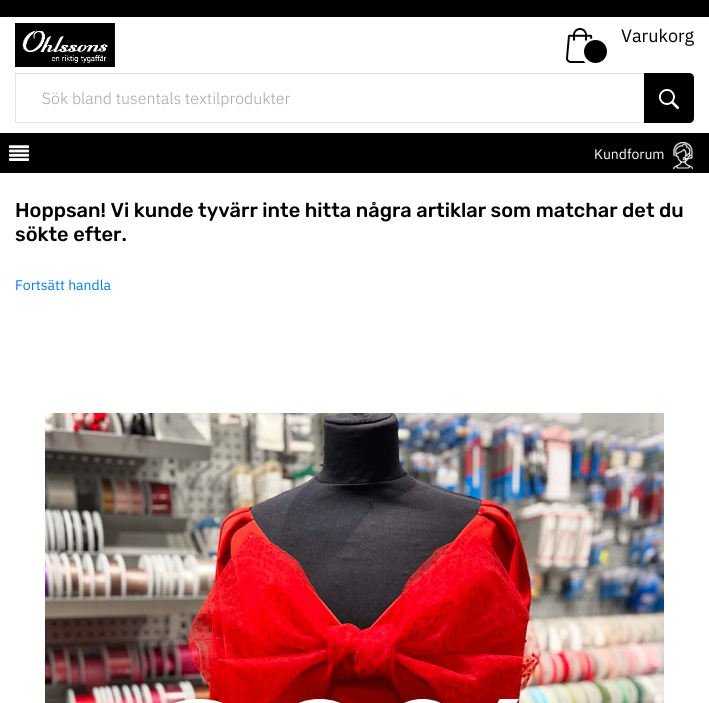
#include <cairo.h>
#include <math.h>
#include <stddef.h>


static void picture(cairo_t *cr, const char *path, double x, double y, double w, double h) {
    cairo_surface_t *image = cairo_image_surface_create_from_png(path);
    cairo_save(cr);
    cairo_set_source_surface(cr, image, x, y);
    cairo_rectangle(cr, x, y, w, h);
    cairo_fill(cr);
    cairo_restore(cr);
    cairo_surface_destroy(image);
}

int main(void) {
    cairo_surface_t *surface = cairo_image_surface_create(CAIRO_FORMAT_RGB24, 709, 703);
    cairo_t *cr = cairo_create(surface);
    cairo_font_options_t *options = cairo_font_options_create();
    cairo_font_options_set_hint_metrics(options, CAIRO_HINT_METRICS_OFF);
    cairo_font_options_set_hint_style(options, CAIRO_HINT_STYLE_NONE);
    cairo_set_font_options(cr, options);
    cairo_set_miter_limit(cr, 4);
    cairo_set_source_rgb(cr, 1, 1, 1);
    cairo_paint(cr);
    cairo_set_source_rgb(cr, 0, 0, 0);
    cairo_rectangle(cr, 0, 0, 709, 17);
    cairo_fill(cr);
    picture(cr, "img1.png", 15, 23, 100, 44);
    picture(cr, "img2.png", 566, 28, 27, 35);
    cairo_arc(cr, 595.5, 51.5, 11.5, 0, 2 * M_PI);
    cairo_fill(cr);
    cairo_select_font_face(cr, "IBM Plex Sans", CAIRO_FONT_SLANT_NORMAL, CAIRO_FONT_WEIGHT_NORMAL);
    cairo_set_font_size(cr, 18);
    cairo_move_to(cr, 621, 42);
    cairo_show_text(cr, "Varukorg");
    cairo_rectangle(cr, 15.5, 73.5, 637, 49);
    cairo_set_source_rgb(cr, 0.898, 0.898, 0.898);
    cairo_set_line_width(cr, 1);
    cairo_stroke(cr);
    cairo_select_font_face(cr, "IBM Plex Sans Light", CAIRO_FONT_SLANT_NORMAL, CAIRO_FONT_WEIGHT_NORMAL);
    cairo_set_font_size(cr, 16);
    cairo_set_source_rgb(cr, 0.639, 0.639, 0.639);
    cairo_move_to(cr, 42, 104);
    cairo_show_text(cr, "Sök bland tusentals textilprodukter");
    cairo_set_source_rgb(cr, 0, 0, 0);
    cairo_new_path(cr);
    cairo_move_to(cr, 644, 73);
    cairo_line_to(cr, 689, 73);
    cairo_curve_to(cr, 692, 73, 694, 75, 694, 78);
    cairo_line_to(cr, 694, 118);
    cairo_curve_to(cr, 694, 121, 692, 123, 689, 123);
    cairo_line_to(cr, 644, 123);
    cairo_close_path(cr);
    cairo_fill(cr);
    picture(cr, "img3.png", 659, 89, 20, 20);
    cairo_rectangle(cr, 0, 133, 709, 40);
    cairo_fill(cr);
    picture(cr, "img4.png", 9, 145, 20, 16);
    cairo_select_font_face(cr, "IBM Plex Sans", CAIRO_FONT_SLANT_NORMAL, CAIRO_FONT_WEIGHT_NORMAL);
    cairo_set_font_size(cr, 14);
    cairo_set_source_rgb(cr, 1, 1, 1);
    cairo_move_to(cr, 594, 159);
    cairo_show_text(cr, "Kundforum");
    picture(cr, "img5.png", 673, 142, 20, 27);
    cairo_select_font_face(cr, "Rubik Medium", CAIRO_FONT_SLANT_NORMAL, CAIRO_FONT_WEIGHT_NORMAL);
    cairo_set_font_size(cr, 20);
    cairo_set_source_rgb(cr, 0, 0, 0);
    cairo_move_to(cr, 15, 217);
    cairo_show_text(cr, "Hoppsan! Vi kunde tyvärr inte hitta några artiklar som matchar det du");
    cairo_move_to(cr, 15, 241);
    cairo_show_text(cr, "sökte efter.");
    cairo_select_font_face(cr, "IBM Plex Sans", CAIRO_FONT_SLANT_NORMAL, CAIRO_FONT_WEIGHT_NORMAL);
    cairo_set_font_size(cr, 14);
    cairo_set_source_rgb(cr, 0, 0.482, 1);
    cairo_move_to(cr, 15, 290);
    cairo_show_text(cr, "Fortsätt handla");
    picture(cr, "img6.png", 45, 413, 619, 290);
    cairo_surface_write_to_png(surface, "page.png");
    cairo_font_options_destroy(options);
    cairo_destroy(cr);
    cairo_surface_destroy(surface);
    return 0;
}
